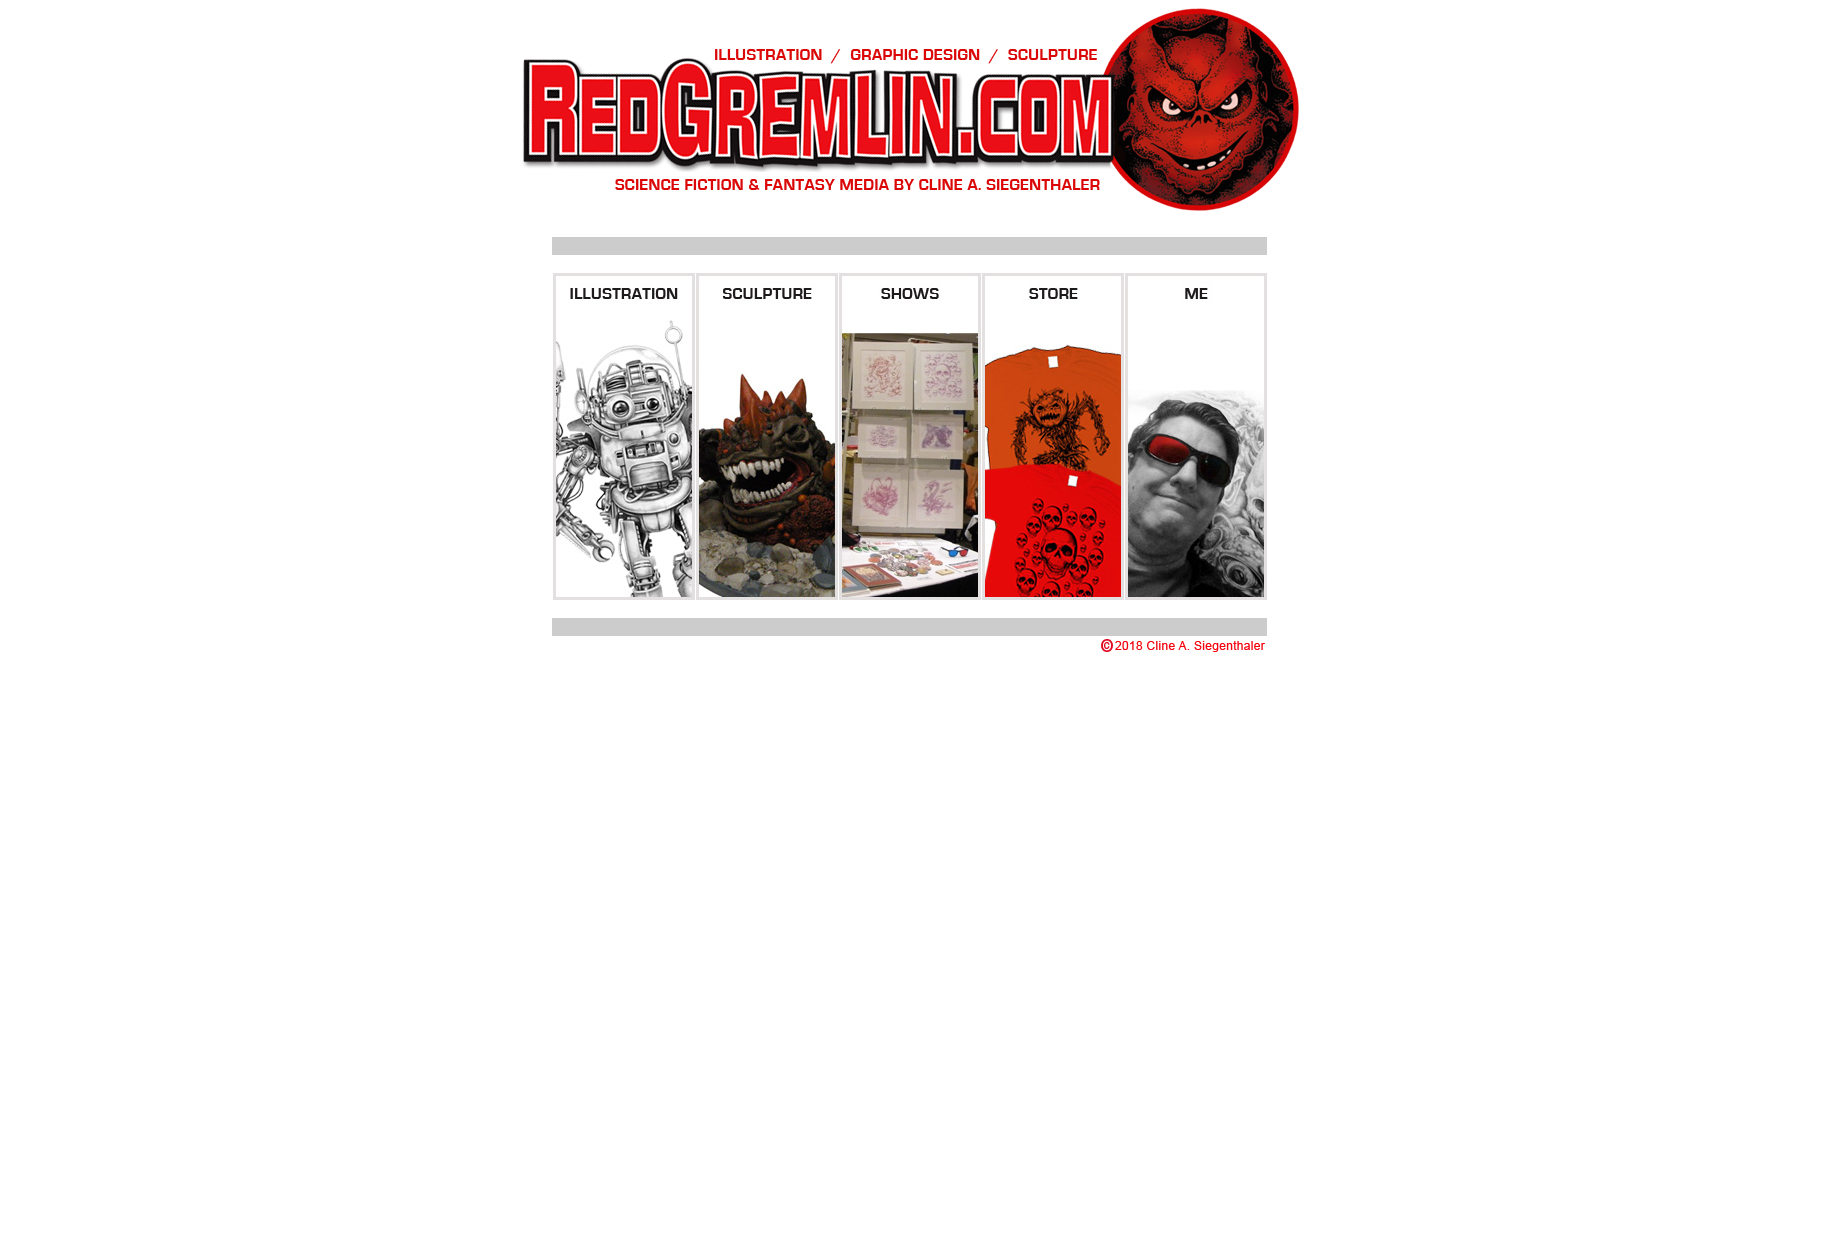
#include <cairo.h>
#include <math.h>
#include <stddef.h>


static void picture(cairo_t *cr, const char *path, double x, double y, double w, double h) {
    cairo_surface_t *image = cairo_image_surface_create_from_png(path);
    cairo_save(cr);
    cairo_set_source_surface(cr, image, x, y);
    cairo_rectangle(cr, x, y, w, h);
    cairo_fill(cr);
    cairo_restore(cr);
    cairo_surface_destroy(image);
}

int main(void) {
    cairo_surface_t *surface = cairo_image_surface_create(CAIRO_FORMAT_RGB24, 1827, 1233);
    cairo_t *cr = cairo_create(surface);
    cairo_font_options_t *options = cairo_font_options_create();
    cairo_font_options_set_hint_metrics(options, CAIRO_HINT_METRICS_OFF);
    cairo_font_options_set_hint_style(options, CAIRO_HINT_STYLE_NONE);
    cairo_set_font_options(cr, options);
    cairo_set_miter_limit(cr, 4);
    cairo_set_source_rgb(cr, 1, 1, 1);
    cairo_paint(cr);
    picture(cr, "img1.png", 522, 8, 777, 203);
    cairo_set_source_rgb(cr, 0.8, 0.8, 0.8);
    cairo_rectangle(cr, 552, 237, 715, 18);
    cairo_fill(cr);
    picture(cr, "img2.png", 552, 273, 143, 327);
    picture(cr, "img3.png", 696, 273, 142, 327);
    picture(cr, "img4.png", 839, 273, 142, 327);
    picture(cr, "img5.png", 982, 273, 142, 327);
    picture(cr, "img6.png", 1125, 273, 142, 327);
    cairo_rectangle(cr, 552, 618, 715, 18);
    cairo_fill(cr);
    picture(cr, "img7.png", 1101, 639, 164, 13);
    cairo_surface_write_to_png(surface, "page.png");
    cairo_font_options_destroy(options);
    cairo_destroy(cr);
    cairo_surface_destroy(surface);
    return 0;
}
